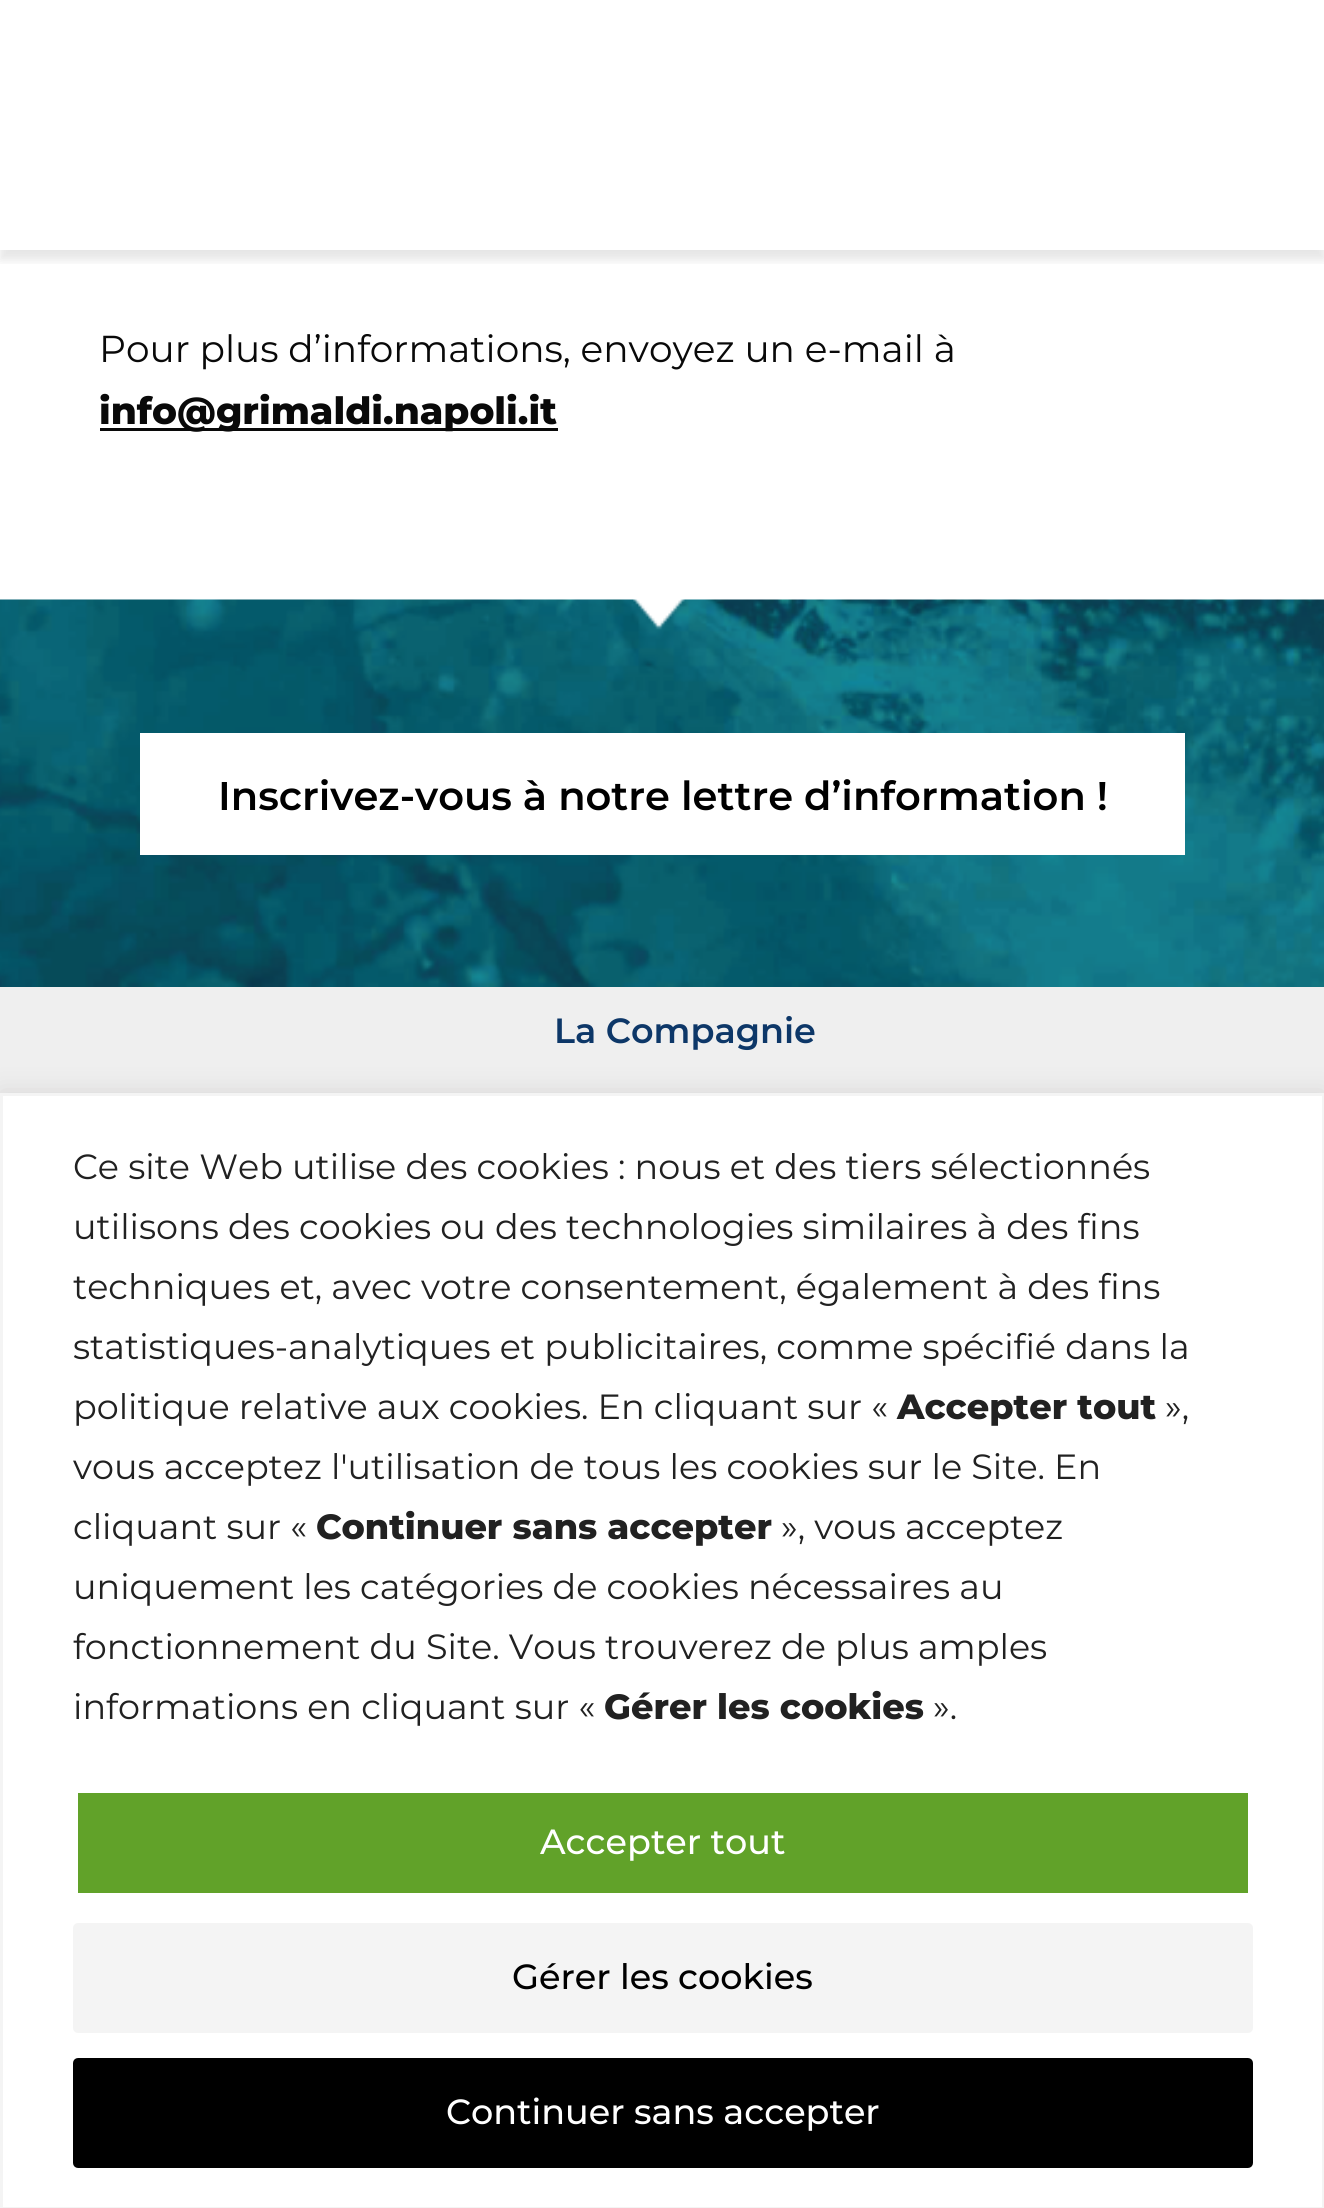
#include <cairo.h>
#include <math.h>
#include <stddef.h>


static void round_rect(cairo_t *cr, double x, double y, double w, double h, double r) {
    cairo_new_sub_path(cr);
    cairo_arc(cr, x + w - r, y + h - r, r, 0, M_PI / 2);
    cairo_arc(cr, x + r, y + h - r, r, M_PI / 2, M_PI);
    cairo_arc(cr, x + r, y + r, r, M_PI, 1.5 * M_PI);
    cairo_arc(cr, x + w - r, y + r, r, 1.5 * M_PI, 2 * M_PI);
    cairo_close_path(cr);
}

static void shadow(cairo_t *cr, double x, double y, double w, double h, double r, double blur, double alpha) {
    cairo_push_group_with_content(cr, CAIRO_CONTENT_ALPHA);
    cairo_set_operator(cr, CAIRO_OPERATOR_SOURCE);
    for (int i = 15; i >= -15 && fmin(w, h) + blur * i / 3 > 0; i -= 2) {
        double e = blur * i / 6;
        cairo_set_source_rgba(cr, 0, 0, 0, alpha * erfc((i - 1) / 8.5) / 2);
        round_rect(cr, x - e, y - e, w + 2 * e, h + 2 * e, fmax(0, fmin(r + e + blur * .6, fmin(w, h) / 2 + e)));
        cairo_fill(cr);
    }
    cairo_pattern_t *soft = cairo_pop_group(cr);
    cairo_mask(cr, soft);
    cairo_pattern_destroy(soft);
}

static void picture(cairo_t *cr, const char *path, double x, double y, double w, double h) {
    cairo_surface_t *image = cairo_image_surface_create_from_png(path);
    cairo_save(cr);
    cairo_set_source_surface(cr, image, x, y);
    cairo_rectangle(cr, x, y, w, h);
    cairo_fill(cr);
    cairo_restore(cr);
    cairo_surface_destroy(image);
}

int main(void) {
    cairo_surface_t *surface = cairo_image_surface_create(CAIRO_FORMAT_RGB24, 1324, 2208);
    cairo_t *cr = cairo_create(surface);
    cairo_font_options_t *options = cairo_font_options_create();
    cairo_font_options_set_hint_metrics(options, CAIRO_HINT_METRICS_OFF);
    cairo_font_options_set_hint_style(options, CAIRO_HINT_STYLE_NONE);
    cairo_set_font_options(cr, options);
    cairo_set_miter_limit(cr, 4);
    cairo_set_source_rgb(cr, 1, 1, 1);
    cairo_paint(cr);
    cairo_save(cr);
    cairo_rectangle(cr, 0, 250, 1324, 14);
    cairo_clip(cr);
    cairo_set_source_rgb(cr, 0, 0, 0);
    shadow(cr, 0, 10, 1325, 250, 0, 5, 0.1);
    cairo_restore(cr);
    cairo_select_font_face(cr, "Montserrat", CAIRO_FONT_SLANT_NORMAL, CAIRO_FONT_WEIGHT_NORMAL);
    cairo_set_font_size(cr, 37.5);
    cairo_set_source_rgb(cr, 0.039, 0.039, 0.039);
    cairo_move_to(cr, 99, 362);
    cairo_show_text(cr, "Pour plus d’informations, envoyez un e-mail à");
    cairo_rectangle(cr, 100, 428, 458, 3);
    cairo_fill(cr);
    cairo_select_font_face(cr, "Montserrat ExtraBold", CAIRO_FONT_SLANT_NORMAL, CAIRO_FONT_WEIGHT_NORMAL);
    cairo_move_to(cr, 99, 424);
    cairo_show_text(cr, "info@grimaldi.napoli.it");
    picture(cr, "img1.png", 0, 599, 1324, 388);
    cairo_set_source_rgb(cr, 1, 1, 1);
    cairo_rectangle(cr, 140, 733, 1045, 122);
    cairo_fill(cr);
    cairo_select_font_face(cr, "Montserrat SemiBold", CAIRO_FONT_SLANT_NORMAL, CAIRO_FONT_WEIGHT_NORMAL);
    cairo_set_font_size(cr, 40);
    cairo_set_source_rgb(cr, 0, 0, 0);
    cairo_move_to(cr, 218, 810);
    cairo_show_text(cr, "Inscrivez-vous à notre lettre d’information !");
    cairo_set_source_rgb(cr, 0.937, 0.937, 0.937);
    cairo_rectangle(cr, 0, 987, 1324, 106);
    cairo_fill(cr);
    cairo_set_font_size(cr, 35);
    cairo_set_source_rgb(cr, 0.051, 0.216, 0.408);
    cairo_move_to(cr, 554, 1043);
    cairo_show_text(cr, "La Compagnie");
    cairo_set_source_rgb(cr, 0.675, 0.671, 0.671);
    shadow(cr, 0, 1090, 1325, 1118, 0, 12.5, 0.3);
    cairo_set_source_rgb(cr, 1, 1, 1);
    cairo_rectangle(cr, 1.5, 1094.5, 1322, 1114);
    cairo_fill_preserve(cr);
    cairo_set_source_rgb(cr, 0.957, 0.957, 0.957);
    cairo_set_line_width(cr, 3);
    cairo_stroke(cr);
    cairo_select_font_face(cr, "Montserrat", CAIRO_FONT_SLANT_NORMAL, CAIRO_FONT_WEIGHT_NORMAL);
    cairo_set_source_rgb(cr, 0.129, 0.129, 0.129);
    cairo_move_to(cr, 73, 1179);
    cairo_show_text(cr, "Ce site Web utilise des cookies : nous et des tiers sélectionnés");
    cairo_move_to(cr, 73, 1239);
    cairo_show_text(cr, "utilisons des cookies ou des technologies similaires à des fins");
    cairo_move_to(cr, 73, 1299);
    cairo_show_text(cr, "techniques et, avec votre consentement, également à des fins");
    cairo_move_to(cr, 73, 1359);
    cairo_show_text(cr, "statistiques-analytiques et publicitaires, comme spécifié dans la");
    cairo_move_to(cr, 73, 1419);
    cairo_show_text(cr, "politique relative aux cookies. En cliquant sur «");
    cairo_select_font_face(cr, "Montserrat ExtraBold", CAIRO_FONT_SLANT_NORMAL, CAIRO_FONT_WEIGHT_NORMAL);
    cairo_move_to(cr, 897, 1419);
    cairo_show_text(cr, "Accepter tout");
    cairo_select_font_face(cr, "Montserrat", CAIRO_FONT_SLANT_NORMAL, CAIRO_FONT_WEIGHT_NORMAL);
    cairo_move_to(cr, 1165, 1419);
    cairo_show_text(cr, "»,");
    cairo_move_to(cr, 73, 1479);
    cairo_show_text(cr, "vous acceptez l'utilisation de tous les cookies sur le Site. En");
    cairo_move_to(cr, 73, 1539);
    cairo_show_text(cr, "cliquant sur «");
    cairo_select_font_face(cr, "Montserrat ExtraBold", CAIRO_FONT_SLANT_NORMAL, CAIRO_FONT_WEIGHT_NORMAL);
    cairo_move_to(cr, 316, 1539);
    cairo_show_text(cr, "Continuer sans accepter");
    cairo_select_font_face(cr, "Montserrat", CAIRO_FONT_SLANT_NORMAL, CAIRO_FONT_WEIGHT_NORMAL);
    cairo_move_to(cr, 781, 1539);
    cairo_show_text(cr, "», vous acceptez");
    cairo_move_to(cr, 73, 1599);
    cairo_show_text(cr, "uniquement les catégories de cookies nécessaires au");
    cairo_move_to(cr, 73, 1659);
    cairo_show_text(cr, "fonctionnement du Site. Vous trouverez de plus amples");
    cairo_move_to(cr, 73, 1719);
    cairo_show_text(cr, "informations en cliquant sur «");
    cairo_select_font_face(cr, "Montserrat ExtraBold", CAIRO_FONT_SLANT_NORMAL, CAIRO_FONT_WEIGHT_NORMAL);
    cairo_move_to(cr, 604, 1719);
    cairo_show_text(cr, "Gérer les cookies");
    cairo_select_font_face(cr, "Montserrat", CAIRO_FONT_SLANT_NORMAL, CAIRO_FONT_WEIGHT_NORMAL);
    cairo_move_to(cr, 933, 1719);
    cairo_show_text(cr, "».");
    cairo_set_source_rgb(cr, 0.38, 0.635, 0.161);
    round_rect(cr, 75.5, 1790.5, 1175, 105, 2.5);
    cairo_fill_preserve(cr);
    cairo_set_source_rgb(cr, 1, 1, 1);
    cairo_set_line_width(cr, 5);
    cairo_stroke(cr);
    cairo_select_font_face(cr, "Montserrat Medium", CAIRO_FONT_SLANT_NORMAL, CAIRO_FONT_WEIGHT_NORMAL);
    cairo_move_to(cr, 540, 1854);
    cairo_show_text(cr, "Accepter tout");
    cairo_set_source_rgb(cr, 0.957, 0.957, 0.957);
    round_rect(cr, 75.5, 1925.5, 1175, 105, 2.5);
    cairo_fill_preserve(cr);
    cairo_stroke(cr);
    cairo_set_source_rgb(cr, 0, 0, 0);
    cairo_move_to(cr, 512, 1989);
    cairo_show_text(cr, "Gérer les cookies");
    round_rect(cr, 75.5, 2060.5, 1175, 105, 2.5);
    cairo_fill_preserve(cr);
    cairo_stroke(cr);
    cairo_set_source_rgb(cr, 1, 1, 1);
    cairo_move_to(cr, 446, 2124);
    cairo_show_text(cr, "Continuer sans accepter");
    cairo_surface_write_to_png(surface, "page.png");
    cairo_font_options_destroy(options);
    cairo_destroy(cr);
    cairo_surface_destroy(surface);
    return 0;
}
